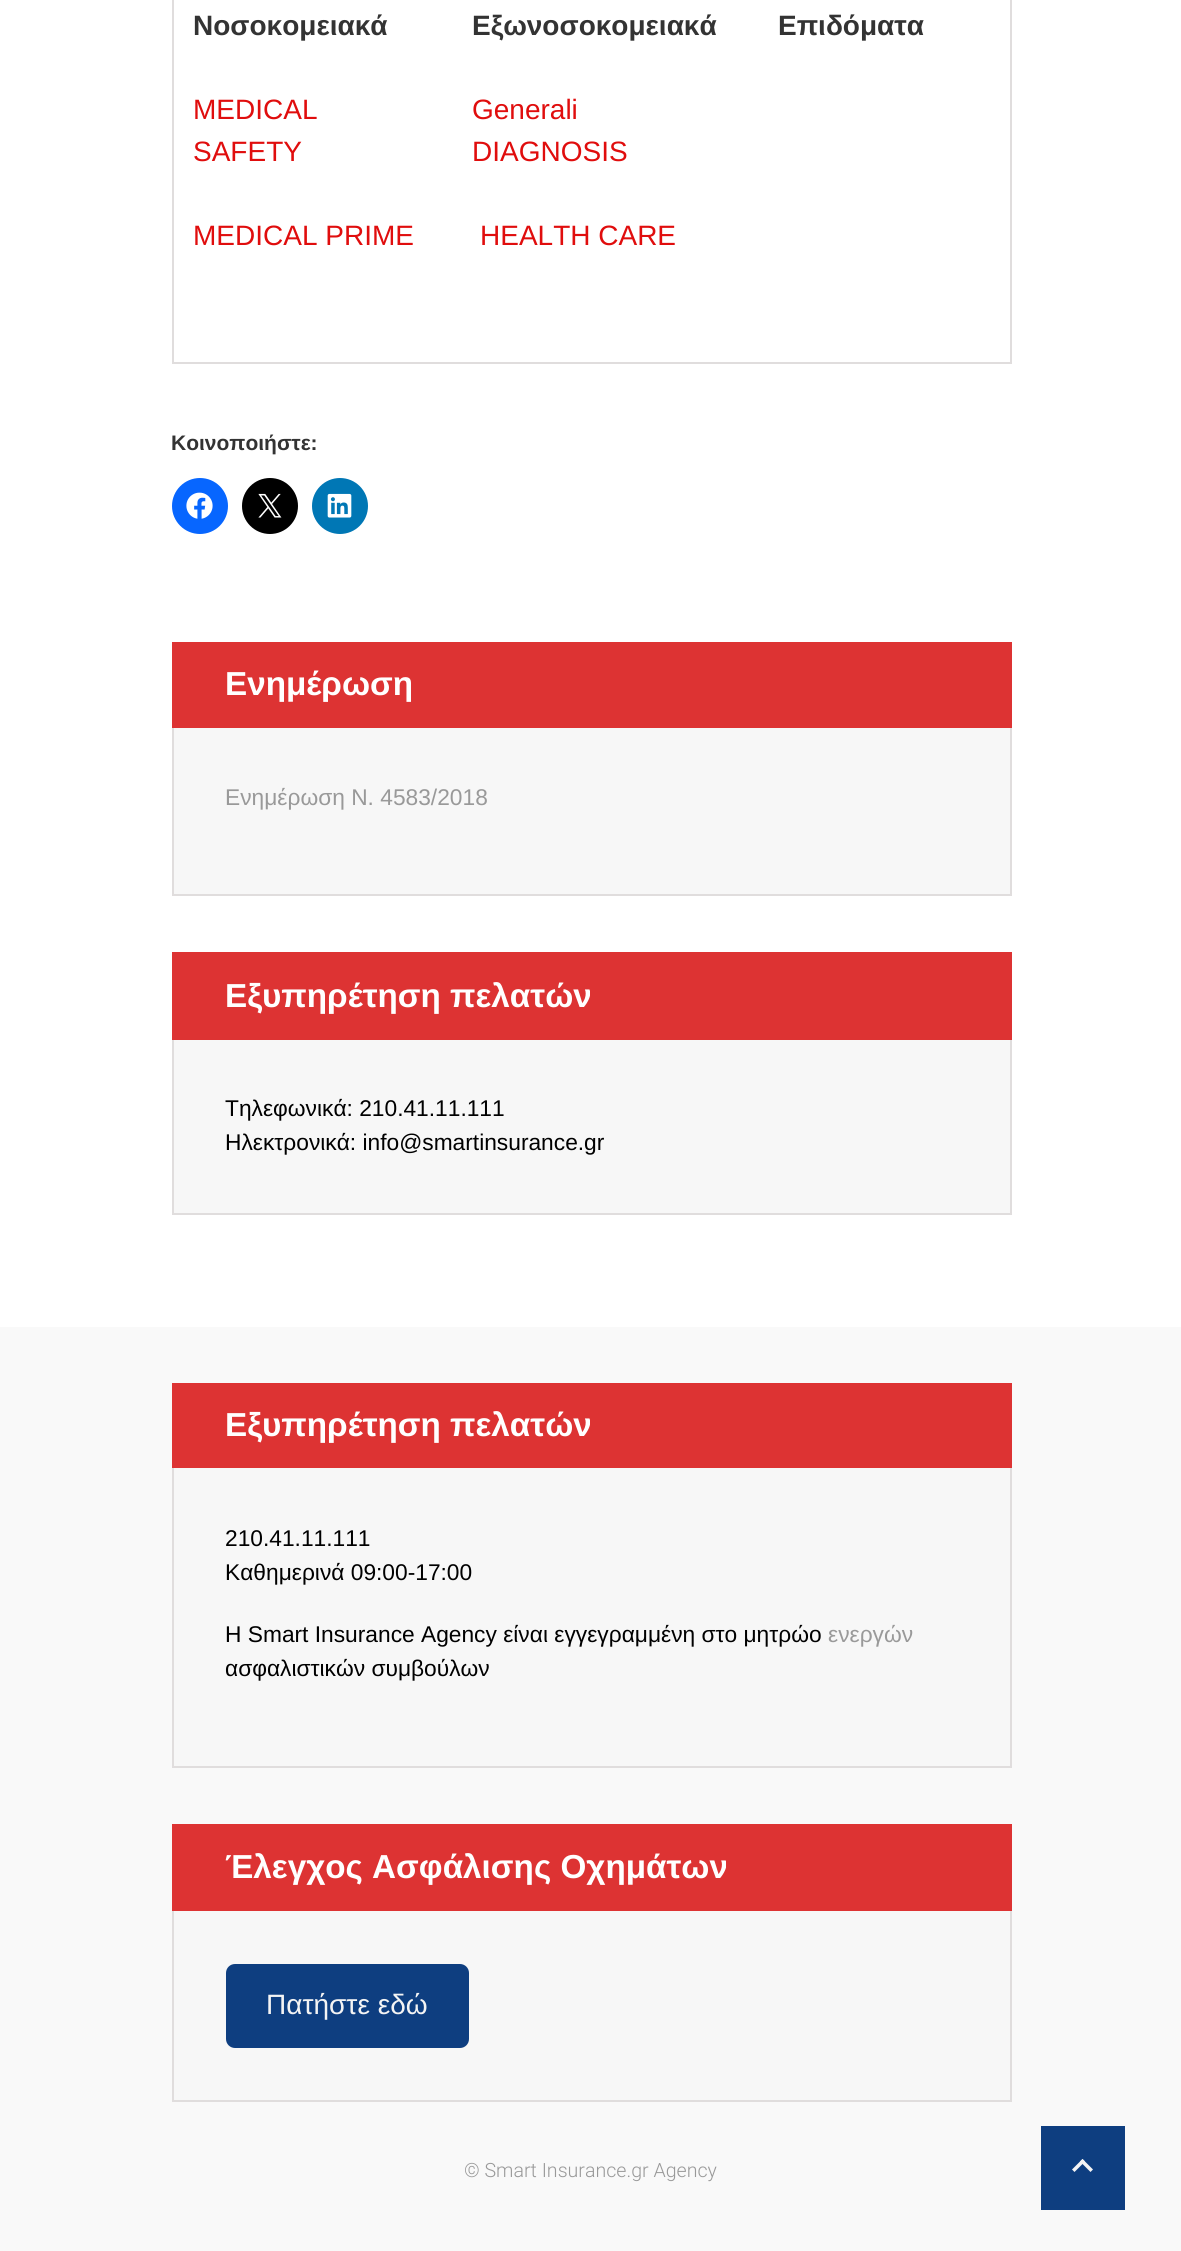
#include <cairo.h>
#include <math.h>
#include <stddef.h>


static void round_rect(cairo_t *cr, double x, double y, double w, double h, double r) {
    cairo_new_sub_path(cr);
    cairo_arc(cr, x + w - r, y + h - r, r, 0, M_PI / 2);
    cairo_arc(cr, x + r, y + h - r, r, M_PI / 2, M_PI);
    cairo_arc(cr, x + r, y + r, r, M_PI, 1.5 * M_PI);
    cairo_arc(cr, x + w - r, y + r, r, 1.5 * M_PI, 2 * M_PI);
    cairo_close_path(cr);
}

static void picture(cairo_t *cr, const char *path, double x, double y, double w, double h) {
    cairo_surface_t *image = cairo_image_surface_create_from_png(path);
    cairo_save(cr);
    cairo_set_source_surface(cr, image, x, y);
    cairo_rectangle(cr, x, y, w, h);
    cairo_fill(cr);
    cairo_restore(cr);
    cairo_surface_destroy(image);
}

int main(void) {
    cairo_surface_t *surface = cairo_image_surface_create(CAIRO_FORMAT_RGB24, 1181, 2251);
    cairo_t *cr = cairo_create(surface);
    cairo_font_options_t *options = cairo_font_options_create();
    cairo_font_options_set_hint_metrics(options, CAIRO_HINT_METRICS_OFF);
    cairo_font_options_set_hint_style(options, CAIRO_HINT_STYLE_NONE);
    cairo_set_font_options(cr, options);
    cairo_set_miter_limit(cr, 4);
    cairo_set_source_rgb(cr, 0.976, 0.976, 0.976);
    cairo_paint(cr);
    cairo_set_source_rgb(cr, 1, 1, 1);
    cairo_rectangle(cr, 0, 0, 1181, 1327);
    cairo_fill(cr);
    cairo_set_source_rgb(cr, 0.878, 0.867, 0.867);
    cairo_rectangle(cr, 1010, 0, 2, 364);
    cairo_fill(cr);
    cairo_rectangle(cr, 172, 362, 840, 2);
    cairo_fill(cr);
    cairo_rectangle(cr, 172, 0, 2, 364);
    cairo_fill(cr);
    cairo_select_font_face(cr, "Liberation Sans", CAIRO_FONT_SLANT_NORMAL, CAIRO_FONT_WEIGHT_BOLD);
    cairo_set_font_size(cr, 28);
    cairo_set_source_rgb(cr, 0.2, 0.2, 0.2);
    cairo_move_to(cr, 193, 35);
    cairo_show_text(cr, "Νοσοκομειακά");
    cairo_move_to(cr, 472, 35);
    cairo_show_text(cr, "Εξωνοσοκομειακά");
    cairo_move_to(cr, 778, 35);
    cairo_show_text(cr, "Επιδόματα");
    cairo_select_font_face(cr, "Liberation Sans", CAIRO_FONT_SLANT_NORMAL, CAIRO_FONT_WEIGHT_NORMAL);
    cairo_set_source_rgb(cr, 0.878, 0.051, 0.051);
    cairo_move_to(cr, 193, 119);
    cairo_show_text(cr, "MEDICAL");
    cairo_move_to(cr, 193, 161);
    cairo_show_text(cr, "SAFETY");
    cairo_move_to(cr, 472, 119);
    cairo_show_text(cr, "Generali");
    cairo_move_to(cr, 472, 161);
    cairo_show_text(cr, "DIAGNOSIS");
    cairo_move_to(cr, 193, 245);
    cairo_show_text(cr, "MEDICAL PRIME");
    cairo_move_to(cr, 480, 245);
    cairo_show_text(cr, "HEALTH CARE");
    cairo_select_font_face(cr, "Liberation Sans", CAIRO_FONT_SLANT_NORMAL, CAIRO_FONT_WEIGHT_BOLD);
    cairo_set_font_size(cr, 21);
    cairo_set_source_rgb(cr, 0.2, 0.2, 0.2);
    cairo_move_to(cr, 171, 450);
    cairo_show_text(cr, "Κοινοποιήστε:");
    cairo_set_source_rgb(cr, 0.031, 0.4, 1);
    cairo_new_path(cr);
    cairo_arc(cr, 200, 506, 28, 0, 2 * M_PI);
    cairo_fill(cr);
    picture(cr, "img1.png", 186, 492, 27, 27);
    cairo_set_source_rgb(cr, 0, 0, 0);
    cairo_arc(cr, 270, 506, 28, 0, 2 * M_PI);
    cairo_fill(cr);
    picture(cr, "img2.png", 258, 493, 24, 25);
    cairo_set_source_rgb(cr, 0, 0.467, 0.71);
    cairo_arc(cr, 340, 506, 28, 0, 2 * M_PI);
    cairo_fill(cr);
    picture(cr, "img3.png", 327, 493, 25, 25);
    cairo_set_source_rgb(cr, 0.965, 0.965, 0.965);
    cairo_rectangle(cr, 174, 728, 836, 166);
    cairo_fill(cr);
    cairo_rectangle(cr, 173, 643, 838, 252);
    cairo_set_source_rgb(cr, 0.878, 0.867, 0.867);
    cairo_stroke(cr);
    cairo_set_source_rgb(cr, 0.867, 0.2, 0.2);
    cairo_rectangle(cr, 172, 642, 840, 86);
    cairo_fill(cr);
    cairo_set_font_size(cr, 33.25);
    cairo_set_source_rgb(cr, 1, 1, 1);
    cairo_move_to(cr, 225, 695);
    cairo_show_text(cr, "Ενημέρωση");
    cairo_select_font_face(cr, "Liberation Sans", CAIRO_FONT_SLANT_NORMAL, CAIRO_FONT_WEIGHT_NORMAL);
    cairo_set_font_size(cr, 22.75);
    cairo_set_source_rgb(cr, 0.6, 0.6, 0.6);
    cairo_move_to(cr, 225, 805);
    cairo_show_text(cr, "Ενημέρωση Ν. 4583/2018");
    cairo_set_source_rgb(cr, 0.965, 0.965, 0.965);
    cairo_rectangle(cr, 174, 1040, 836, 173);
    cairo_fill(cr);
    cairo_rectangle(cr, 173, 953, 838, 261);
    cairo_set_source_rgb(cr, 0.878, 0.867, 0.867);
    cairo_stroke(cr);
    cairo_set_source_rgb(cr, 0.867, 0.2, 0.2);
    cairo_rectangle(cr, 172, 952, 840, 88);
    cairo_fill(cr);
    cairo_select_font_face(cr, "Liberation Sans", CAIRO_FONT_SLANT_NORMAL, CAIRO_FONT_WEIGHT_BOLD);
    cairo_set_font_size(cr, 33.25);
    cairo_set_source_rgb(cr, 1, 1, 1);
    cairo_move_to(cr, 225, 1007);
    cairo_show_text(cr, "Εξυπηρέτηση πελατών");
    cairo_select_font_face(cr, "Liberation Sans", CAIRO_FONT_SLANT_NORMAL, CAIRO_FONT_WEIGHT_NORMAL);
    cairo_set_font_size(cr, 22.75);
    cairo_set_source_rgb(cr, 0, 0, 0);
    cairo_move_to(cr, 225, 1116);
    cairo_show_text(cr, "Τηλεφωνικά: 210.41.11.111");
    cairo_move_to(cr, 225, 1150);
    cairo_show_text(cr, "Ηλεκτρονικά: info@smartinsurance.gr");
    cairo_set_source_rgb(cr, 0.965, 0.965, 0.965);
    cairo_rectangle(cr, 174, 1468, 836, 298);
    cairo_fill(cr);
    cairo_rectangle(cr, 173, 1384, 838, 383);
    cairo_set_source_rgb(cr, 0.878, 0.867, 0.867);
    cairo_stroke(cr);
    cairo_set_source_rgb(cr, 0.867, 0.2, 0.2);
    cairo_rectangle(cr, 172, 1383, 840, 85);
    cairo_fill(cr);
    cairo_select_font_face(cr, "Liberation Sans", CAIRO_FONT_SLANT_NORMAL, CAIRO_FONT_WEIGHT_BOLD);
    cairo_set_font_size(cr, 33.25);
    cairo_set_source_rgb(cr, 1, 1, 1);
    cairo_move_to(cr, 225, 1436);
    cairo_show_text(cr, "Εξυπηρέτηση πελατών");
    cairo_select_font_face(cr, "Liberation Sans", CAIRO_FONT_SLANT_NORMAL, CAIRO_FONT_WEIGHT_NORMAL);
    cairo_set_font_size(cr, 22.75);
    cairo_set_source_rgb(cr, 0, 0, 0);
    cairo_move_to(cr, 225, 1546);
    cairo_show_text(cr, "210.41.11.111");
    cairo_move_to(cr, 225, 1580);
    cairo_show_text(cr, "Καθημερινά 09:00-17:00");
    cairo_move_to(cr, 225, 1642);
    cairo_show_text(cr, "Η Smart Insurance Agency είναι εγγεγραμμένη στο μητρώο");
    cairo_set_source_rgb(cr, 0.6, 0.6, 0.6);
    cairo_move_to(cr, 828, 1642);
    cairo_show_text(cr, "ενεργών");
    cairo_set_source_rgb(cr, 0, 0, 0);
    cairo_move_to(cr, 225, 1676);
    cairo_show_text(cr, "ασφαλιστικών συμβούλων");
    cairo_set_source_rgb(cr, 0.965, 0.965, 0.965);
    cairo_rectangle(cr, 174, 1911, 836, 189);
    cairo_fill(cr);
    cairo_rectangle(cr, 173, 1825, 838, 276);
    cairo_set_source_rgb(cr, 0.878, 0.867, 0.867);
    cairo_stroke(cr);
    cairo_set_source_rgb(cr, 0.867, 0.2, 0.2);
    cairo_rectangle(cr, 172, 1824, 840, 87);
    cairo_fill(cr);
    cairo_select_font_face(cr, "Liberation Sans", CAIRO_FONT_SLANT_NORMAL, CAIRO_FONT_WEIGHT_BOLD);
    cairo_set_font_size(cr, 33.25);
    cairo_set_source_rgb(cr, 1, 1, 1);
    cairo_move_to(cr, 225, 1878);
    cairo_show_text(cr, "Έλεγχος Ασφάλισης Οχημάτων");
    cairo_set_source_rgb(cr, 0.055, 0.243, 0.502);
    round_rect(cr, 227, 1965, 241, 82, 8);
    cairo_fill_preserve(cr);
    cairo_stroke(cr);
    cairo_select_font_face(cr, "Liberation Sans", CAIRO_FONT_SLANT_NORMAL, CAIRO_FONT_WEIGHT_NORMAL);
    cairo_set_font_size(cr, 28);
    cairo_set_source_rgb(cr, 0.957, 0.957, 0.957);
    cairo_move_to(cr, 266, 2014);
    cairo_show_text(cr, "Πατήστε εδώ");
    cairo_select_font_face(cr, "Roboto Light", CAIRO_FONT_SLANT_NORMAL, CAIRO_FONT_WEIGHT_NORMAL);
    cairo_set_font_size(cr, 19.6);
    cairo_set_source_rgb(cr, 0.6, 0.6, 0.6);
    cairo_move_to(cr, 464, 2177);
    cairo_show_text(cr, "© Smart Insurance.gr Agency");
    cairo_set_source_rgb(cr, 0.055, 0.243, 0.502);
    cairo_rectangle(cr, 1041, 2126, 84, 84);
    cairo_fill(cr);
    cairo_set_source_rgb(cr, 0.957, 0.957, 0.957);
    cairo_new_path(cr);
    cairo_move_to(cr, 1072, 2169.5);
    cairo_line_to(cr, 1082.5, 2159);
    cairo_line_to(cr, 1085, 2161.5);
    cairo_line_to(cr, 1074.5, 2172);
    cairo_close_path(cr);
    cairo_fill(cr);
    cairo_new_path(cr);
    cairo_move_to(cr, 1080, 2161.5);
    cairo_line_to(cr, 1082.5, 2159);
    cairo_line_to(cr, 1093, 2169.5);
    cairo_line_to(cr, 1090.5, 2172);
    cairo_close_path(cr);
    cairo_fill(cr);
    cairo_surface_write_to_png(surface, "page.png");
    cairo_font_options_destroy(options);
    cairo_destroy(cr);
    cairo_surface_destroy(surface);
    return 0;
}
